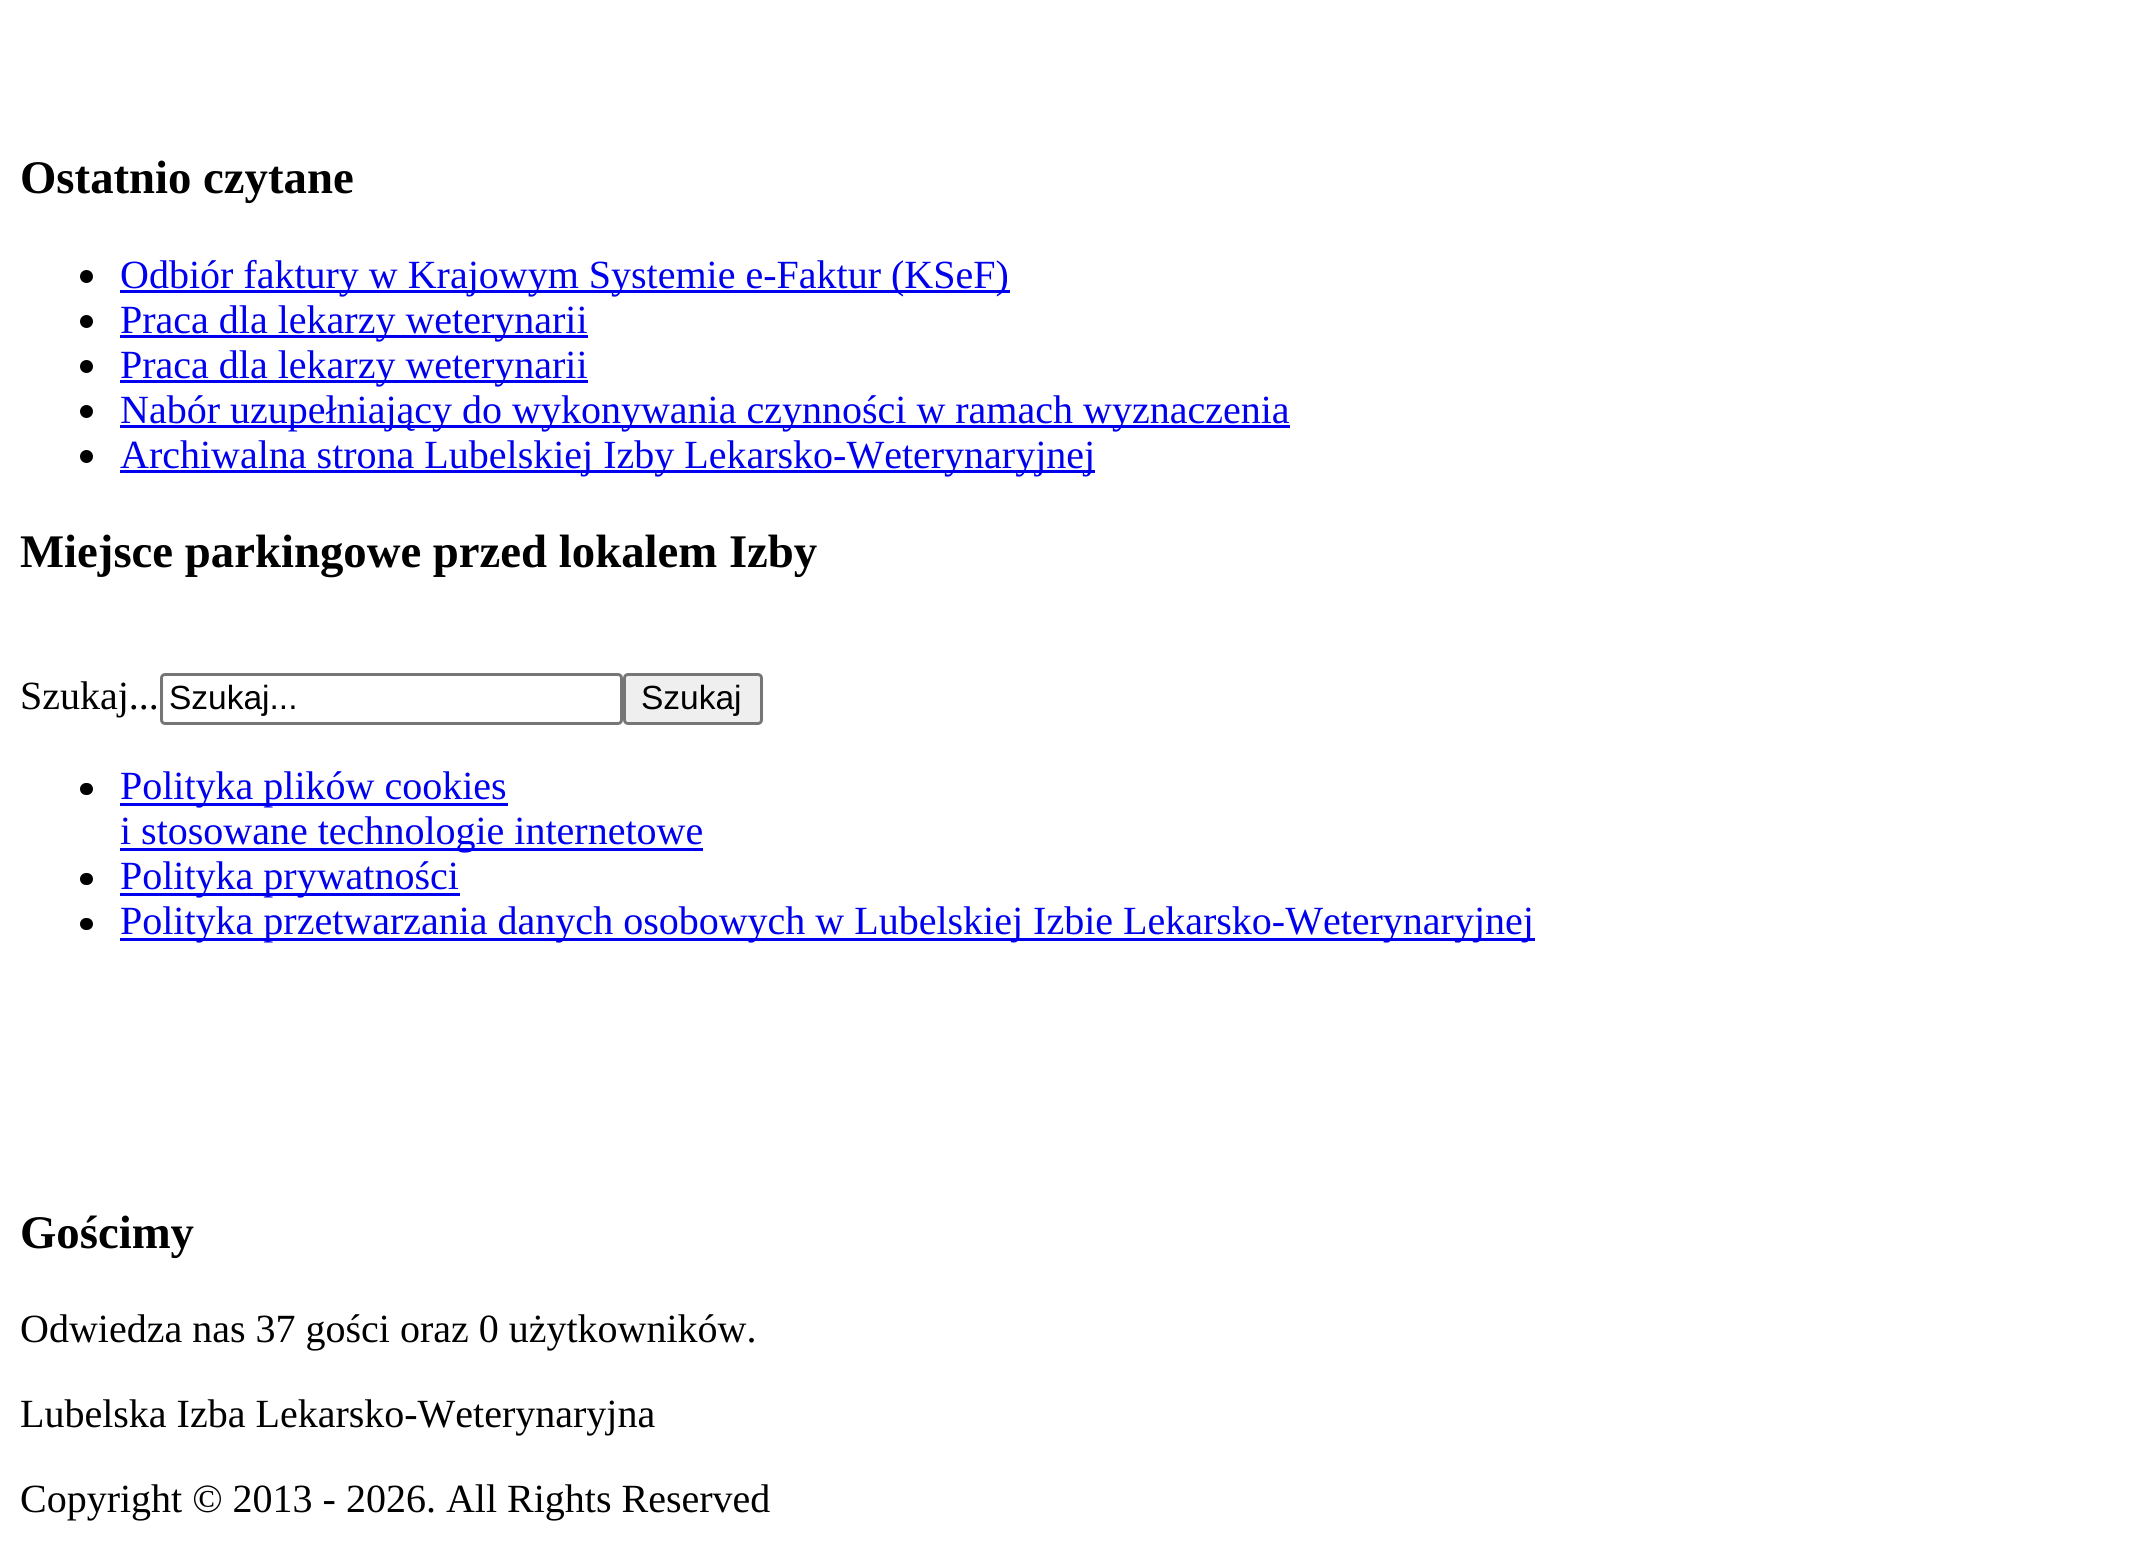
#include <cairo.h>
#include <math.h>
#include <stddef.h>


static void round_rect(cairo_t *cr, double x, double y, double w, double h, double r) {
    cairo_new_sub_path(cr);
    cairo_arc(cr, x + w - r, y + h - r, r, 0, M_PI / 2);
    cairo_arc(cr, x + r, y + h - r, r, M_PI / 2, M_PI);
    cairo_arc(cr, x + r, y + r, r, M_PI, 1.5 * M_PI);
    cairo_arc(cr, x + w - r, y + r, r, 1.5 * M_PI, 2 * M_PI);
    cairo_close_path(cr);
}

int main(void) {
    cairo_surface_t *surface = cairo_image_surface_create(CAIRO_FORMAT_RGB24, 2131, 1562);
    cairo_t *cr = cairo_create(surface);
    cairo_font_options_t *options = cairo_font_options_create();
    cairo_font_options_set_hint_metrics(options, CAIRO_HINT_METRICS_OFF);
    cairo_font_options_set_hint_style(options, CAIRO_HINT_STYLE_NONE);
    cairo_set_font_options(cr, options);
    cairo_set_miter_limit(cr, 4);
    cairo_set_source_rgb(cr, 1, 1, 1);
    cairo_paint(cr);
    cairo_select_font_face(cr, "Liberation Serif", CAIRO_FONT_SLANT_NORMAL, CAIRO_FONT_WEIGHT_BOLD);
    cairo_set_font_size(cr, 46.75);
    cairo_set_source_rgb(cr, 0, 0, 0);
    cairo_move_to(cr, 20, 193);
    cairo_show_text(cr, "Ostatnio czytane");
    cairo_new_path(cr);
    cairo_arc(cr, 86.5, 276.5, 6.5, 0, 2 * M_PI);
    cairo_fill(cr);
    cairo_set_source_rgb(cr, 0, 0, 0.933);
    cairo_rectangle(cr, 120, 290, 890, 3);
    cairo_fill(cr);
    cairo_select_font_face(cr, "Liberation Serif", CAIRO_FONT_SLANT_NORMAL, CAIRO_FONT_WEIGHT_NORMAL);
    cairo_set_font_size(cr, 40);
    cairo_move_to(cr, 120, 288);
    cairo_show_text(cr, "Odbiór faktury w Krajowym Systemie e-Faktur (KSeF)");
    cairo_set_source_rgb(cr, 0, 0, 0);
    cairo_new_path(cr);
    cairo_arc(cr, 86.5, 321.5, 6.5, 0, 2 * M_PI);
    cairo_fill(cr);
    cairo_set_source_rgb(cr, 0, 0, 0.933);
    cairo_rectangle(cr, 120, 335, 468, 3);
    cairo_fill(cr);
    cairo_move_to(cr, 120, 333);
    cairo_show_text(cr, "Praca dla lekarzy weterynarii");
    cairo_set_source_rgb(cr, 0, 0, 0);
    cairo_new_path(cr);
    cairo_arc(cr, 86.5, 366.5, 6.5, 0, 2 * M_PI);
    cairo_fill(cr);
    cairo_set_source_rgb(cr, 0, 0, 0.933);
    cairo_rectangle(cr, 120, 380, 468, 3);
    cairo_fill(cr);
    cairo_move_to(cr, 120, 378);
    cairo_show_text(cr, "Praca dla lekarzy weterynarii");
    cairo_set_source_rgb(cr, 0, 0, 0);
    cairo_new_path(cr);
    cairo_arc(cr, 86.5, 411.5, 6.5, 0, 2 * M_PI);
    cairo_fill(cr);
    cairo_set_source_rgb(cr, 0, 0, 0.933);
    cairo_rectangle(cr, 120, 425, 1170, 3);
    cairo_fill(cr);
    cairo_move_to(cr, 120, 423);
    cairo_show_text(cr, "Nabór uzupełniający do wykonywania czynności w ramach wyznaczenia");
    cairo_set_source_rgb(cr, 0, 0, 0);
    cairo_new_path(cr);
    cairo_arc(cr, 86.5, 456.5, 6.5, 0, 2 * M_PI);
    cairo_fill(cr);
    cairo_set_source_rgb(cr, 0, 0, 0.933);
    cairo_rectangle(cr, 120, 470, 975, 3);
    cairo_fill(cr);
    cairo_move_to(cr, 120, 468);
    cairo_show_text(cr, "Archiwalna strona Lubelskiej Izby Lekarsko-Weterynaryjnej");
    cairo_select_font_face(cr, "Liberation Serif", CAIRO_FONT_SLANT_NORMAL, CAIRO_FONT_WEIGHT_BOLD);
    cairo_set_font_size(cr, 46.75);
    cairo_set_source_rgb(cr, 0, 0, 0);
    cairo_move_to(cr, 20, 567);
    cairo_show_text(cr, "Miejsce parkingowe przed lokalem Izby");
    cairo_select_font_face(cr, "Liberation Serif", CAIRO_FONT_SLANT_NORMAL, CAIRO_FONT_WEIGHT_NORMAL);
    cairo_set_font_size(cr, 40);
    cairo_move_to(cr, 20, 709);
    cairo_show_text(cr, "Szukaj...");
    round_rect(cr, 161.5, 674.5, 460, 49, 3.5);
    cairo_set_source_rgb(cr, 0.463, 0.463, 0.463);
    cairo_set_line_width(cr, 3);
    cairo_stroke(cr);
    cairo_select_font_face(cr, "Liberation Sans", CAIRO_FONT_SLANT_NORMAL, CAIRO_FONT_WEIGHT_NORMAL);
    cairo_set_font_size(cr, 33.5);
    cairo_set_source_rgb(cr, 0, 0, 0);
    cairo_move_to(cr, 169, 709);
    cairo_show_text(cr, "Szukaj...");
    cairo_set_source_rgb(cr, 0.937, 0.937, 0.937);
    round_rect(cr, 624.5, 674.5, 137, 49, 3.5);
    cairo_fill_preserve(cr);
    cairo_set_source_rgb(cr, 0.463, 0.463, 0.463);
    cairo_stroke(cr);
    cairo_set_source_rgb(cr, 0, 0, 0);
    cairo_move_to(cr, 641, 709);
    cairo_show_text(cr, "Szukaj");
    round_rect(cr, 80, 783, 13, 12, 6);
    cairo_fill(cr);
    cairo_set_source_rgb(cr, 0, 0, 0.933);
    cairo_rectangle(cr, 120, 803, 388, 3);
    cairo_fill(cr);
    cairo_select_font_face(cr, "Liberation Serif", CAIRO_FONT_SLANT_NORMAL, CAIRO_FONT_WEIGHT_NORMAL);
    cairo_set_font_size(cr, 40);
    cairo_move_to(cr, 120, 799);
    cairo_show_text(cr, "Polityka plików cookies");
    cairo_rectangle(cr, 120, 848, 583, 3);
    cairo_fill(cr);
    cairo_move_to(cr, 120, 844);
    cairo_show_text(cr, "i stosowane technologie internetowe");
    cairo_set_source_rgb(cr, 0, 0, 0);
    round_rect(cr, 80, 873, 13, 12, 6);
    cairo_fill(cr);
    cairo_set_source_rgb(cr, 0, 0, 0.933);
    cairo_rectangle(cr, 120, 893, 340, 3);
    cairo_fill(cr);
    cairo_move_to(cr, 120, 889);
    cairo_show_text(cr, "Polityka prywatności");
    cairo_set_source_rgb(cr, 0, 0, 0);
    round_rect(cr, 80, 918, 13, 12, 6);
    cairo_fill(cr);
    cairo_set_source_rgb(cr, 0, 0, 0.933);
    cairo_rectangle(cr, 120, 938, 1415, 3);
    cairo_fill(cr);
    cairo_move_to(cr, 120, 934);
    cairo_show_text(cr, "Polityka przetwarzania danych osobowych w Lubelskiej Izbie Lekarsko-Weterynaryjnej");
    cairo_select_font_face(cr, "Liberation Serif", CAIRO_FONT_SLANT_NORMAL, CAIRO_FONT_WEIGHT_BOLD);
    cairo_set_font_size(cr, 46.75);
    cairo_set_source_rgb(cr, 0, 0, 0);
    cairo_move_to(cr, 20, 1248);
    cairo_show_text(cr, "Gościmy");
    cairo_select_font_face(cr, "Liberation Serif", CAIRO_FONT_SLANT_NORMAL, CAIRO_FONT_WEIGHT_NORMAL);
    cairo_set_font_size(cr, 40);
    cairo_move_to(cr, 20, 1342);
    cairo_show_text(cr, "Odwiedza nas 37 gości oraz 0 użytkowników.");
    cairo_move_to(cr, 20, 1427);
    cairo_show_text(cr, "Lubelska Izba Lekarsko-Weterynaryjna");
    cairo_move_to(cr, 20, 1512);
    cairo_show_text(cr, "Copyright © 2013 - 2026. All Rights Reserved");
    cairo_surface_write_to_png(surface, "page.png");
    cairo_font_options_destroy(options);
    cairo_destroy(cr);
    cairo_surface_destroy(surface);
    return 0;
}
